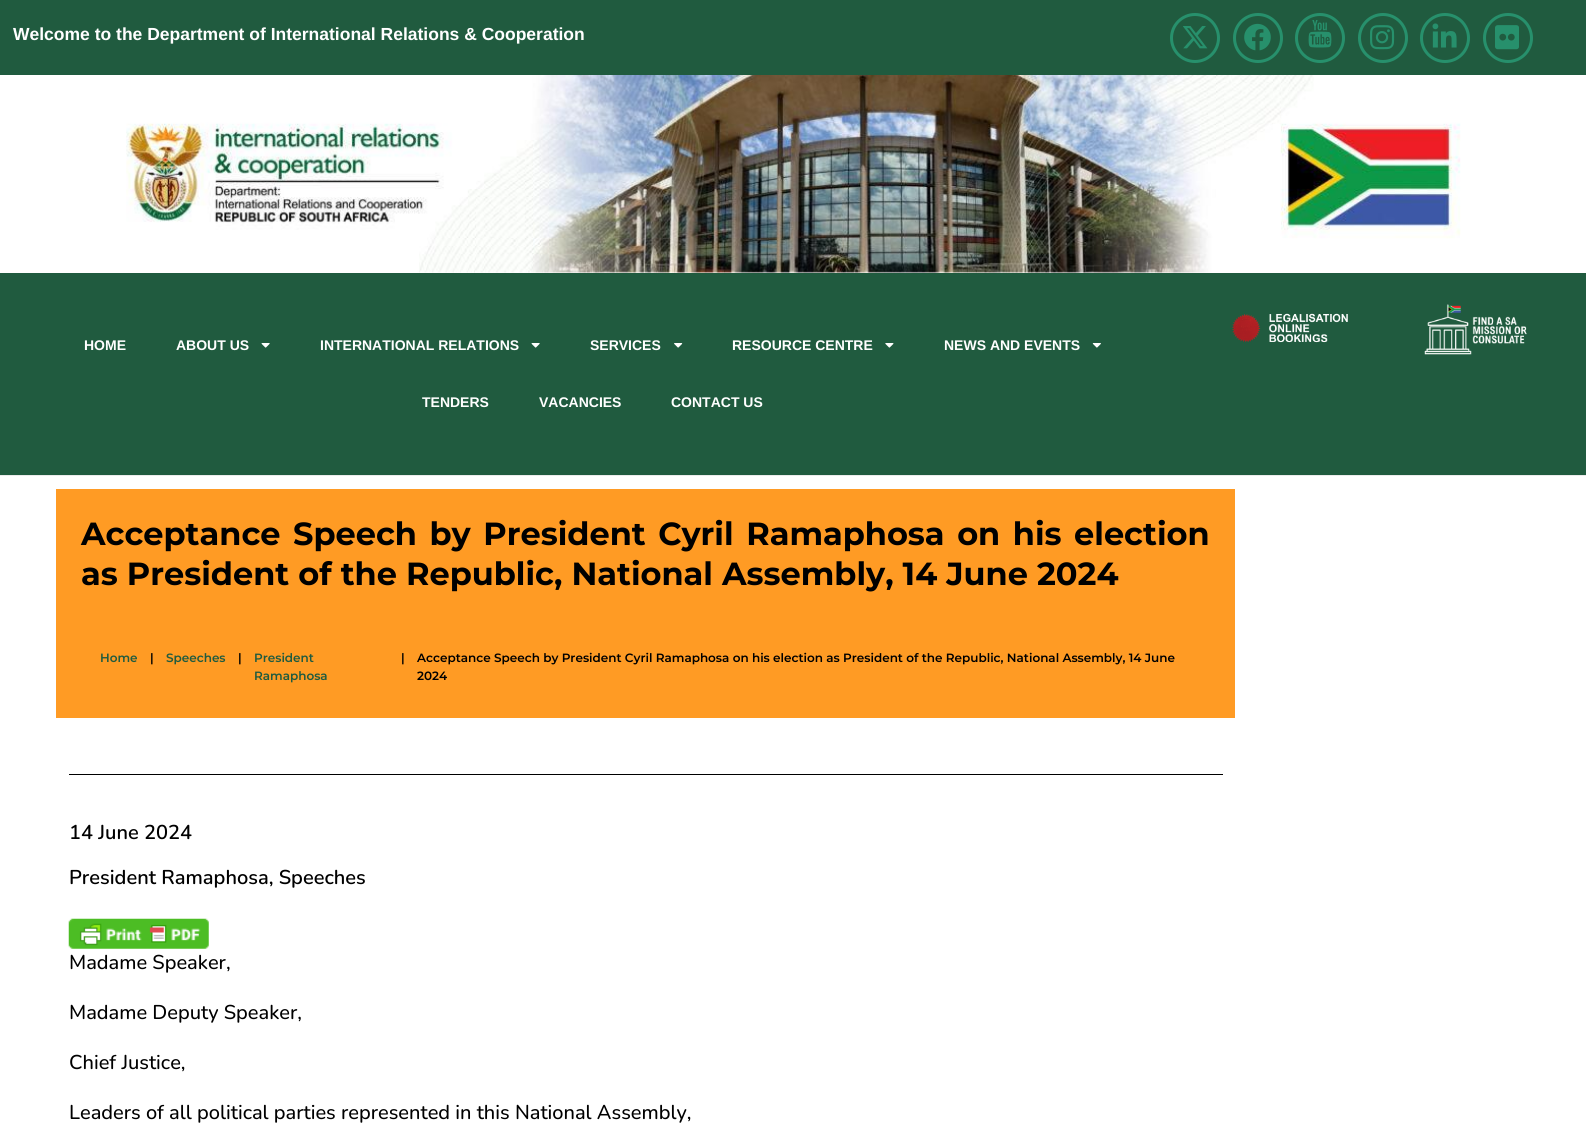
#include <cairo.h>
#include <math.h>
#include <stddef.h>


static void spaced_text(cairo_t *cr, double x, double y, const char *s, double letter, double word) {
    cairo_move_to(cr, x, y);
    while (*s) {
        char ch[5] = {0};
        int n = 0;
        do ch[n++] = *s++; while ((*s & 0xC0) == 0x80);
        cairo_show_text(cr, ch);
        cairo_rel_move_to(cr, letter + word * (*ch == ' '), 0);
    }
}

static void picture(cairo_t *cr, const char *path, double x, double y, double w, double h) {
    cairo_surface_t *image = cairo_image_surface_create_from_png(path);
    cairo_save(cr);
    cairo_set_source_surface(cr, image, x, y);
    cairo_rectangle(cr, x, y, w, h);
    cairo_fill(cr);
    cairo_restore(cr);
    cairo_surface_destroy(image);
}

int main(void) {
    cairo_surface_t *surface = cairo_image_surface_create(CAIRO_FORMAT_RGB24, 1586, 1143);
    cairo_t *cr = cairo_create(surface);
    cairo_font_options_t *options = cairo_font_options_create();
    cairo_font_options_set_hint_metrics(options, CAIRO_HINT_METRICS_OFF);
    cairo_font_options_set_hint_style(options, CAIRO_HINT_STYLE_NONE);
    cairo_set_font_options(cr, options);
    cairo_set_miter_limit(cr, 4);
    cairo_set_source_rgb(cr, 1, 1, 1);
    cairo_paint(cr);
    cairo_set_source_rgb(cr, 0.125, 0.357, 0.247);
    cairo_rectangle(cr, 0, 0, 1586, 75);
    cairo_fill(cr);
    cairo_select_font_face(cr, "Liberation Sans", CAIRO_FONT_SLANT_NORMAL, CAIRO_FONT_WEIGHT_BOLD);
    cairo_set_font_size(cr, 17.5);
    cairo_set_source_rgb(cr, 1, 1, 1);
    cairo_move_to(cr, 13, 40);
    cairo_show_text(cr, "Welcome to the Department of International Relations & Cooperation");
    picture(cr, "img1.png", 1183, 26, 25, 23);
    cairo_arc(cr, 1195, 38, 23.5, 0, 2 * M_PI);
    cairo_set_source_rgb(cr, 0.153, 0.565, 0.424);
    cairo_set_line_width(cr, 3);
    cairo_stroke(cr);
    picture(cr, "img2.png", 1244, 23, 27, 28);
    cairo_arc(cr, 1258, 38, 23.5, 0, 2 * M_PI);
    cairo_stroke(cr);
    picture(cr, "img3.png", 1308, 20, 24, 28);
    cairo_arc(cr, 1320, 38, 23.5, 0, 2 * M_PI);
    cairo_stroke(cr);
    picture(cr, "img4.png", 1370, 25, 25, 25);
    cairo_arc(cr, 1383, 38, 23.5, 0, 2 * M_PI);
    cairo_stroke(cr);
    picture(cr, "img5.png", 1432, 23, 25, 25);
    cairo_arc(cr, 1445, 38, 23.5, 0, 2 * M_PI);
    cairo_stroke(cr);
    picture(cr, "img6.png", 1495, 25, 24, 25);
    cairo_arc(cr, 1508, 38, 23.5, 0, 2 * M_PI);
    cairo_stroke(cr);
    picture(cr, "img7.png", 126, 75, 1335, 198);
    cairo_set_source_rgb(cr, 0.125, 0.357, 0.247);
    cairo_rectangle(cr, 0, 273, 1586, 202);
    cairo_fill(cr);
    picture(cr, "img8.png", 1232, 313, 116, 30);
    picture(cr, "img9.png", 1424, 304, 103, 51);
    cairo_set_font_size(cr, 14);
    cairo_set_source_rgb(cr, 1, 1, 1);
    cairo_move_to(cr, 84, 350);
    cairo_show_text(cr, "HOME");
    cairo_move_to(cr, 176, 350);
    cairo_show_text(cr, "ABOUT US");
    picture(cr, "img10.png", 261, 343, 9, 5);
    cairo_move_to(cr, 320, 350);
    cairo_show_text(cr, "INTERNATIONAL RELATIONS");
    picture(cr, "img10.png", 531, 343, 9, 5);
    cairo_move_to(cr, 590, 350);
    cairo_show_text(cr, "SERVICES");
    picture(cr, "img11.png", 674, 343, 9, 5);
    cairo_move_to(cr, 732, 350);
    cairo_show_text(cr, "RESOURCE CENTRE");
    picture(cr, "img12.png", 885, 343, 9, 5);
    cairo_move_to(cr, 944, 350);
    cairo_show_text(cr, "NEWS AND EVENTS");
    picture(cr, "img13.png", 1092, 343, 9, 5);
    cairo_move_to(cr, 422, 407);
    cairo_show_text(cr, "TENDERS");
    cairo_move_to(cr, 539, 407);
    cairo_show_text(cr, "VACANCIES");
    cairo_move_to(cr, 671, 407);
    cairo_show_text(cr, "CONTACT US");
    cairo_set_source_rgb(cr, 0.918, 0.918, 0.918);
    cairo_rectangle(cr, 0, 475, 1586, 1);
    cairo_fill(cr);
    cairo_set_source_rgb(cr, 1, 0.608, 0.141);
    cairo_rectangle(cr, 56, 489, 1179, 229);
    cairo_fill(cr);
    cairo_select_font_face(cr, "Montserrat", CAIRO_FONT_SLANT_NORMAL, CAIRO_FONT_WEIGHT_BOLD);
    cairo_set_font_size(cr, 32);
    cairo_set_source_rgb(cr, 0, 0, 0);
    spaced_text(cr, 81, 545, "Acceptance Speech by President Cyril Ramaphosa on his election", 0, 3.5);
    cairo_move_to(cr, 81, 585);
    cairo_show_text(cr, "as President of the Republic, National Assembly, 14 June 2024");
    cairo_select_font_face(cr, "Montserrat SemiBold", CAIRO_FONT_SLANT_NORMAL, CAIRO_FONT_WEIGHT_NORMAL);
    cairo_set_font_size(cr, 12);
    cairo_set_source_rgb(cr, 0.125, 0.357, 0.247);
    cairo_move_to(cr, 100, 662);
    cairo_show_text(cr, "Home");
    cairo_set_source_rgb(cr, 0, 0, 0);
    cairo_move_to(cr, 150, 662);
    cairo_show_text(cr, "|");
    cairo_set_source_rgb(cr, 0.125, 0.357, 0.247);
    cairo_move_to(cr, 166, 662);
    cairo_show_text(cr, "Speeches");
    cairo_set_source_rgb(cr, 0, 0, 0);
    cairo_move_to(cr, 238, 662);
    cairo_show_text(cr, "|");
    cairo_set_source_rgb(cr, 0.125, 0.357, 0.247);
    cairo_move_to(cr, 254, 662);
    cairo_show_text(cr, "President");
    cairo_move_to(cr, 254, 680);
    cairo_show_text(cr, "Ramaphosa");
    cairo_set_source_rgb(cr, 0, 0, 0);
    cairo_move_to(cr, 401, 662);
    cairo_show_text(cr, "|");
    cairo_move_to(cr, 417, 662);
    cairo_show_text(cr, "Acceptance Speech by President Cyril Ramaphosa on his election as President of the Republic, National Assembly, 14 June");
    cairo_move_to(cr, 417, 680);
    cairo_show_text(cr, "2024");
    cairo_rectangle(cr, 69, 774, 1154, 1);
    cairo_fill(cr);
    cairo_select_font_face(cr, "Nunito SemiBold", CAIRO_FONT_SLANT_NORMAL, CAIRO_FONT_WEIGHT_NORMAL);
    cairo_set_font_size(cr, 20);
    cairo_move_to(cr, 69, 839);
    cairo_show_text(cr, "14 June 2024");
    cairo_move_to(cr, 69, 884);
    cairo_show_text(cr, "President Ramaphosa, Speeches");
    picture(cr, "img14.png", 68, 918, 141, 31);
    cairo_select_font_face(cr, "Nunito Medium", CAIRO_FONT_SLANT_NORMAL, CAIRO_FONT_WEIGHT_NORMAL);
    cairo_move_to(cr, 69, 969);
    cairo_show_text(cr, "Madame Speaker,");
    cairo_move_to(cr, 69, 1019);
    cairo_show_text(cr, "Madame Deputy Speaker,");
    cairo_move_to(cr, 69, 1069);
    cairo_show_text(cr, "Chief Justice,");
    cairo_move_to(cr, 69, 1119);
    cairo_show_text(cr, "Leaders of all political parties represented in this National Assembly,");
    cairo_surface_write_to_png(surface, "page.png");
    cairo_font_options_destroy(options);
    cairo_destroy(cr);
    cairo_surface_destroy(surface);
    return 0;
}
